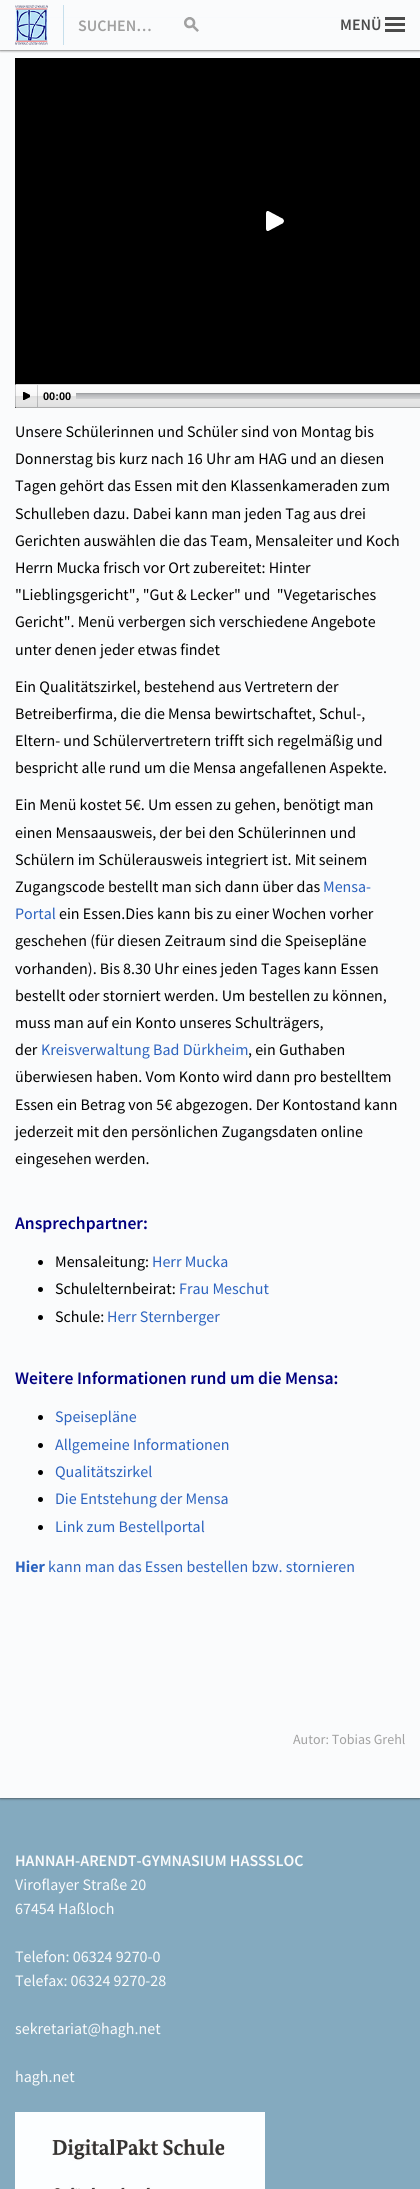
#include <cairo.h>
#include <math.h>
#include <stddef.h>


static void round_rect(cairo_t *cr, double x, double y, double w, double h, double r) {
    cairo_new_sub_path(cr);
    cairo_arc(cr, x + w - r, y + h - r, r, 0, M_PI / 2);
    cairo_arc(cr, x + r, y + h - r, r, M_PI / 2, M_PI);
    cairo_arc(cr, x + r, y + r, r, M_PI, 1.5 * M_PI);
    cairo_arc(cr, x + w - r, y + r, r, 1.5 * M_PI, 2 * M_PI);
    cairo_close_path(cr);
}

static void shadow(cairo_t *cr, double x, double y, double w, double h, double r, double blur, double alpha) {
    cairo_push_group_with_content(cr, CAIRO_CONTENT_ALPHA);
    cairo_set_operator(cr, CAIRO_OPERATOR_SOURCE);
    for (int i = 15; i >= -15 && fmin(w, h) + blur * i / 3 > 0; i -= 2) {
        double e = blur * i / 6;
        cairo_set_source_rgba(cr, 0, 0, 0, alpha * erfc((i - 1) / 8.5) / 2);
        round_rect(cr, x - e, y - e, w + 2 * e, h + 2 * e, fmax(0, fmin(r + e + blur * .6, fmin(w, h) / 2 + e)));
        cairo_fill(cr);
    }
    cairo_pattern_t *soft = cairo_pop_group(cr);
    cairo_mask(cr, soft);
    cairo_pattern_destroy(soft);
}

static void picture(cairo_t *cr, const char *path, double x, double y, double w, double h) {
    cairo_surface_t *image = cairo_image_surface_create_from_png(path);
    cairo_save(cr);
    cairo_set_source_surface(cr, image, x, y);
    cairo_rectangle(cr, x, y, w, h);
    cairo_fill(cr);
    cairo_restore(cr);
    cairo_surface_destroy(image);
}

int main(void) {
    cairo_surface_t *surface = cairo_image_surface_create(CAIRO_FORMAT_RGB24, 420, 2189);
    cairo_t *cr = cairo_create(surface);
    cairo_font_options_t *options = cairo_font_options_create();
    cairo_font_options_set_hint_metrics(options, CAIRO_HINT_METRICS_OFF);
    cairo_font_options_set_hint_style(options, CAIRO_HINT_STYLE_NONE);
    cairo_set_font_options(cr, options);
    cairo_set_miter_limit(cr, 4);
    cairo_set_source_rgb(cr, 0.518, 0.667, 0.749);
    cairo_paint(cr);
    cairo_set_source_rgb(cr, 0.141, 0.141, 0.141);
    shadow(cr, 0, -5, 420, 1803, 0, 1.5, 1);
    cairo_set_source_rgb(cr, 0.98, 0.984, 0.988);
    cairo_rectangle(cr, 0, 0, 420, 1798);
    cairo_fill(cr);
    cairo_set_source_rgb(cr, 0.875, 0.933, 0.965);
    cairo_rectangle(cr, 15, 17, 370, 1);
    cairo_fill(cr);
    cairo_save(cr);
    cairo_rectangle(cr, 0, 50, 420, 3);
    cairo_clip(cr);
    cairo_set_source_rgb(cr, 0.141, 0.141, 0.141);
    shadow(cr, 0, 0, 420, 50, 0, 1.5, 1);
    cairo_restore(cr);
    cairo_set_source_rgba(cr, 0.98, 0.984, 0.988, 0.95);
    cairo_rectangle(cr, 15, 17, 370, 1);
    cairo_fill(cr);
    picture(cr, "img1.png", 15, 5, 33, 40);
    cairo_set_source_rgb(cr, 0.78, 0.875, 0.925);
    cairo_rectangle(cr, 63, 5, 1, 40);
    cairo_fill(cr);
    cairo_select_font_face(cr, "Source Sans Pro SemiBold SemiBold", CAIRO_FONT_SLANT_NORMAL, CAIRO_FONT_WEIGHT_NORMAL);
    cairo_set_font_size(cr, 16);
    cairo_set_source_rgb(cr, 0.631, 0.631, 0.631);
    cairo_move_to(cr, 78, 31);
    cairo_show_text(cr, "SUCHEN…");
    picture(cr, "img2.png", 184, 17, 15, 15);
    cairo_set_source_rgb(cr, 0.294, 0.294, 0.294);
    cairo_move_to(cr, 340, 30);
    cairo_show_text(cr, "MENÜ");
    cairo_rectangle(cr, 385, 17, 20, 3);
    cairo_fill(cr);
    cairo_rectangle(cr, 385, 23, 20, 3);
    cairo_fill(cr);
    cairo_rectangle(cr, 385, 29, 20, 3);
    cairo_fill(cr);
    cairo_set_source_rgb(cr, 0, 0, 0);
    cairo_rectangle(cr, 15, 58, 405, 350);
    cairo_fill(cr);
    picture(cr, "img3.png", 266, 211, 18, 20);
    picture(cr, "img4.png", 15, 384, 1, 24);
    picture(cr, "img5.png", 16, 384, 404, 24);
    picture(cr, "img6.png", 23, 392, 7, 8);
    picture(cr, "img7.png", 37, 385, 1, 22);
    cairo_select_font_face(cr, "Liberation Sans", CAIRO_FONT_SLANT_NORMAL, CAIRO_FONT_WEIGHT_BOLD);
    cairo_set_font_size(cr, 11);
    cairo_move_to(cr, 43, 400);
    cairo_show_text(cr, "00:00");
    picture(cr, "img8.png", 76, 393, 344, 6);
    cairo_select_font_face(cr, "Source Sans Pro", CAIRO_FONT_SLANT_NORMAL, CAIRO_FONT_WEIGHT_NORMAL);
    cairo_set_font_size(cr, 16);
    cairo_move_to(cr, 15, 437);
    cairo_show_text(cr, "Unsere Schülerinnen und Schüler sind von Montag bis");
    cairo_move_to(cr, 15, 464);
    cairo_show_text(cr, "Donnerstag bis kurz nach 16 Uhr am HAG und an diesen");
    cairo_move_to(cr, 15, 491);
    cairo_show_text(cr, "Tagen gehört das Essen mit den Klassenkameraden zum");
    cairo_move_to(cr, 15, 519);
    cairo_show_text(cr, "Schulleben dazu. Dabei kann man jeden Tag aus drei");
    cairo_move_to(cr, 15, 546);
    cairo_show_text(cr, "Gerichten auswählen die das Team, Mensaleiter und Koch");
    cairo_move_to(cr, 15, 573);
    cairo_show_text(cr, "Herrn Mucka frisch vor Ort zubereitet: Hinter");
    cairo_move_to(cr, 15, 600);
    cairo_show_text(cr, "\"Lieblingsgericht\", \"Gut & Lecker\" und  \"Vegetarisches");
    cairo_move_to(cr, 15, 627);
    cairo_show_text(cr, "Gericht\". Menü verbergen sich verschiedene Angebote");
    cairo_move_to(cr, 15, 655);
    cairo_show_text(cr, "unter denen jeder etwas findet");
    cairo_move_to(cr, 15, 692);
    cairo_show_text(cr, "Ein Qualitätszirkel, bestehend aus Vertretern der");
    cairo_move_to(cr, 15, 719);
    cairo_show_text(cr, "Betreiberfirma, die die Mensa bewirtschaftet, Schul-,");
    cairo_move_to(cr, 15, 746);
    cairo_show_text(cr, "Eltern- und Schülervertretern trifft sich regelmäßig und");
    cairo_move_to(cr, 15, 773);
    cairo_show_text(cr, "bespricht alle rund um die Mensa angefallenen Aspekte.");
    cairo_move_to(cr, 15, 810);
    cairo_show_text(cr, "Ein Menü kostet 5€. Um essen zu gehen, benötigt man");
    cairo_move_to(cr, 15, 838);
    cairo_show_text(cr, "einen Mensaausweis, der bei den Schülerinnen und");
    cairo_move_to(cr, 15, 865);
    cairo_show_text(cr, "Schülern im Schülerausweis integriert ist. Mit seinem");
    cairo_move_to(cr, 15, 892);
    cairo_show_text(cr, "Zugangscode bestellt man sich dann über das");
    cairo_set_source_rgb(cr, 0.173, 0.388, 0.749);
    cairo_move_to(cr, 323, 892);
    cairo_show_text(cr, "Mensa-");
    cairo_move_to(cr, 15, 919);
    cairo_show_text(cr, "Portal");
    cairo_set_source_rgb(cr, 0, 0, 0);
    cairo_move_to(cr, 59, 919);
    cairo_show_text(cr, "ein Essen.Dies kann bis zu einer Wochen vorher");
    cairo_move_to(cr, 15, 946);
    cairo_show_text(cr, "geschehen (für diesen Zeitraum sind die Speisepläne");
    cairo_move_to(cr, 15, 974);
    cairo_show_text(cr, "vorhanden). Bis 8.30 Uhr eines jeden Tages kann Essen");
    cairo_move_to(cr, 15, 1001);
    cairo_show_text(cr, "bestellt oder storniert werden. Um bestellen zu können,");
    cairo_move_to(cr, 15, 1028);
    cairo_show_text(cr, "muss man auf ein Konto unseres Schulträgers,");
    cairo_move_to(cr, 15, 1055);
    cairo_show_text(cr, "der");
    cairo_set_source_rgb(cr, 0.173, 0.388, 0.749);
    cairo_move_to(cr, 41, 1055);
    cairo_show_text(cr, "Kreisverwaltung Bad Dürkheim");
    cairo_set_source_rgb(cr, 0, 0, 0);
    cairo_move_to(cr, 248, 1055);
    cairo_show_text(cr, ", ein Guthaben");
    cairo_move_to(cr, 15, 1082);
    cairo_show_text(cr, "überwiesen haben. Vom Konto wird dann pro bestelltem");
    cairo_move_to(cr, 15, 1110);
    cairo_show_text(cr, "Essen ein Betrag von 5€ abgezogen. Der Kontostand kann");
    cairo_move_to(cr, 15, 1137);
    cairo_show_text(cr, "jederzeit mit den persönlichen Zugangsdaten online");
    cairo_move_to(cr, 15, 1164);
    cairo_show_text(cr, "eingesehen werden.");
    cairo_select_font_face(cr, "Source Sans Pro SemiBold SemiBold", CAIRO_FONT_SLANT_NORMAL, CAIRO_FONT_WEIGHT_NORMAL);
    cairo_set_font_size(cr, 17.6);
    cairo_set_source_rgb(cr, 0.004, 0, 0.502);
    cairo_move_to(cr, 15, 1229);
    cairo_show_text(cr, "Ansprechpartner:");
    cairo_set_source_rgb(cr, 0, 0, 0);
    cairo_new_path(cr);
    cairo_arc(cr, 40.5, 1262.5, 2.5, 0, 2 * M_PI);
    cairo_fill(cr);
    cairo_select_font_face(cr, "Source Sans Pro", CAIRO_FONT_SLANT_NORMAL, CAIRO_FONT_WEIGHT_NORMAL);
    cairo_set_font_size(cr, 16);
    cairo_move_to(cr, 55, 1267);
    cairo_show_text(cr, "Mensaleitung:");
    cairo_set_source_rgb(cr, 0.173, 0.388, 0.749);
    cairo_move_to(cr, 152, 1267);
    cairo_show_text(cr, "Herr Mucka");
    cairo_set_source_rgb(cr, 0, 0, 0);
    cairo_new_path(cr);
    cairo_arc(cr, 40.5, 1289.5, 2.5, 0, 2 * M_PI);
    cairo_fill(cr);
    cairo_move_to(cr, 55, 1294);
    cairo_show_text(cr, "Schulelternbeirat:");
    cairo_set_source_rgb(cr, 0.173, 0.388, 0.749);
    cairo_move_to(cr, 179, 1294);
    cairo_show_text(cr, "Frau Meschut");
    cairo_set_source_rgb(cr, 0, 0, 0);
    cairo_new_path(cr);
    cairo_arc(cr, 40.5, 1317.5, 2.5, 0, 2 * M_PI);
    cairo_fill(cr);
    cairo_move_to(cr, 55, 1322);
    cairo_show_text(cr, "Schule:");
    cairo_set_source_rgb(cr, 0.173, 0.388, 0.749);
    cairo_move_to(cr, 107, 1322);
    cairo_show_text(cr, "Herr Sternberger");
    cairo_select_font_face(cr, "Source Sans Pro SemiBold SemiBold", CAIRO_FONT_SLANT_NORMAL, CAIRO_FONT_WEIGHT_NORMAL);
    cairo_set_font_size(cr, 17.6);
    cairo_set_source_rgb(cr, 0.004, 0, 0.502);
    cairo_move_to(cr, 15, 1384);
    cairo_show_text(cr, "Weitere Informationen rund um die Mensa:");
    cairo_set_source_rgb(cr, 0, 0, 0);
    cairo_new_path(cr);
    cairo_arc(cr, 40.5, 1417.5, 2.5, 0, 2 * M_PI);
    cairo_fill(cr);
    cairo_select_font_face(cr, "Source Sans Pro", CAIRO_FONT_SLANT_NORMAL, CAIRO_FONT_WEIGHT_NORMAL);
    cairo_set_font_size(cr, 16);
    cairo_set_source_rgb(cr, 0.173, 0.388, 0.749);
    cairo_move_to(cr, 55, 1422);
    cairo_show_text(cr, "Speisepläne");
    cairo_set_source_rgb(cr, 0, 0, 0);
    cairo_new_path(cr);
    cairo_arc(cr, 40.5, 1445.5, 2.5, 0, 2 * M_PI);
    cairo_fill(cr);
    cairo_set_source_rgb(cr, 0.173, 0.388, 0.749);
    cairo_move_to(cr, 55, 1450);
    cairo_show_text(cr, "Allgemeine Informationen");
    cairo_set_source_rgb(cr, 0, 0, 0);
    cairo_new_path(cr);
    cairo_arc(cr, 40.5, 1472.5, 2.5, 0, 2 * M_PI);
    cairo_fill(cr);
    cairo_set_source_rgb(cr, 0.173, 0.388, 0.749);
    cairo_move_to(cr, 55, 1477);
    cairo_show_text(cr, "Qualitätszirkel");
    cairo_set_source_rgb(cr, 0, 0, 0);
    cairo_new_path(cr);
    cairo_arc(cr, 40.5, 1499.5, 2.5, 0, 2 * M_PI);
    cairo_fill(cr);
    cairo_set_source_rgb(cr, 0.173, 0.388, 0.749);
    cairo_move_to(cr, 55, 1504);
    cairo_show_text(cr, "Die Entstehung der Mensa");
    cairo_set_source_rgb(cr, 0, 0, 0);
    cairo_new_path(cr);
    cairo_arc(cr, 40.5, 1527.5, 2.5, 0, 2 * M_PI);
    cairo_fill(cr);
    cairo_set_source_rgb(cr, 0.173, 0.388, 0.749);
    cairo_move_to(cr, 55, 1532);
    cairo_show_text(cr, "Link zum Bestellportal");
    cairo_select_font_face(cr, "Source Sans Pro", CAIRO_FONT_SLANT_NORMAL, CAIRO_FONT_WEIGHT_BOLD);
    cairo_move_to(cr, 15, 1572);
    cairo_show_text(cr, "Hier");
    cairo_select_font_face(cr, "Source Sans Pro", CAIRO_FONT_SLANT_NORMAL, CAIRO_FONT_WEIGHT_NORMAL);
    cairo_move_to(cr, 48, 1572);
    cairo_show_text(cr, "kann man das Essen bestellen bzw. stornieren");
    cairo_set_font_size(cr, 14);
    cairo_set_source_rgb(cr, 0.631, 0.631, 0.631);
    cairo_move_to(cr, 293, 1744);
    cairo_show_text(cr, "Autor: Tobias Grehl");
    cairo_select_font_face(cr, "Source Sans Pro SemiBold SemiBold", CAIRO_FONT_SLANT_NORMAL, CAIRO_FONT_WEIGHT_NORMAL);
    cairo_set_font_size(cr, 16);
    cairo_set_source_rgb(cr, 0.98, 0.984, 0.988);
    cairo_move_to(cr, 15, 1866);
    cairo_show_text(cr, "HANNAH-ARENDT-GYMNASIUM HASSSLOC");
    cairo_select_font_face(cr, "Source Sans Pro", CAIRO_FONT_SLANT_NORMAL, CAIRO_FONT_WEIGHT_NORMAL);
    cairo_move_to(cr, 15, 1890);
    cairo_show_text(cr, "Viroflayer Straße 20");
    cairo_move_to(cr, 15, 1914);
    cairo_show_text(cr, "67454 Haßloch");
    cairo_move_to(cr, 15, 1962);
    cairo_show_text(cr, "Telefon: 06324 9270-0");
    cairo_move_to(cr, 15, 1986);
    cairo_show_text(cr, "Telefax: 06324 9270-28");
    cairo_move_to(cr, 15, 2034);
    cairo_show_text(cr, "sekretariat@hagh.net");
    cairo_move_to(cr, 15, 2082);
    cairo_show_text(cr, "hagh.net");
    picture(cr, "img9.png", 15, 2112, 250, 77);
    cairo_surface_write_to_png(surface, "page.png");
    cairo_font_options_destroy(options);
    cairo_destroy(cr);
    cairo_surface_destroy(surface);
    return 0;
}
